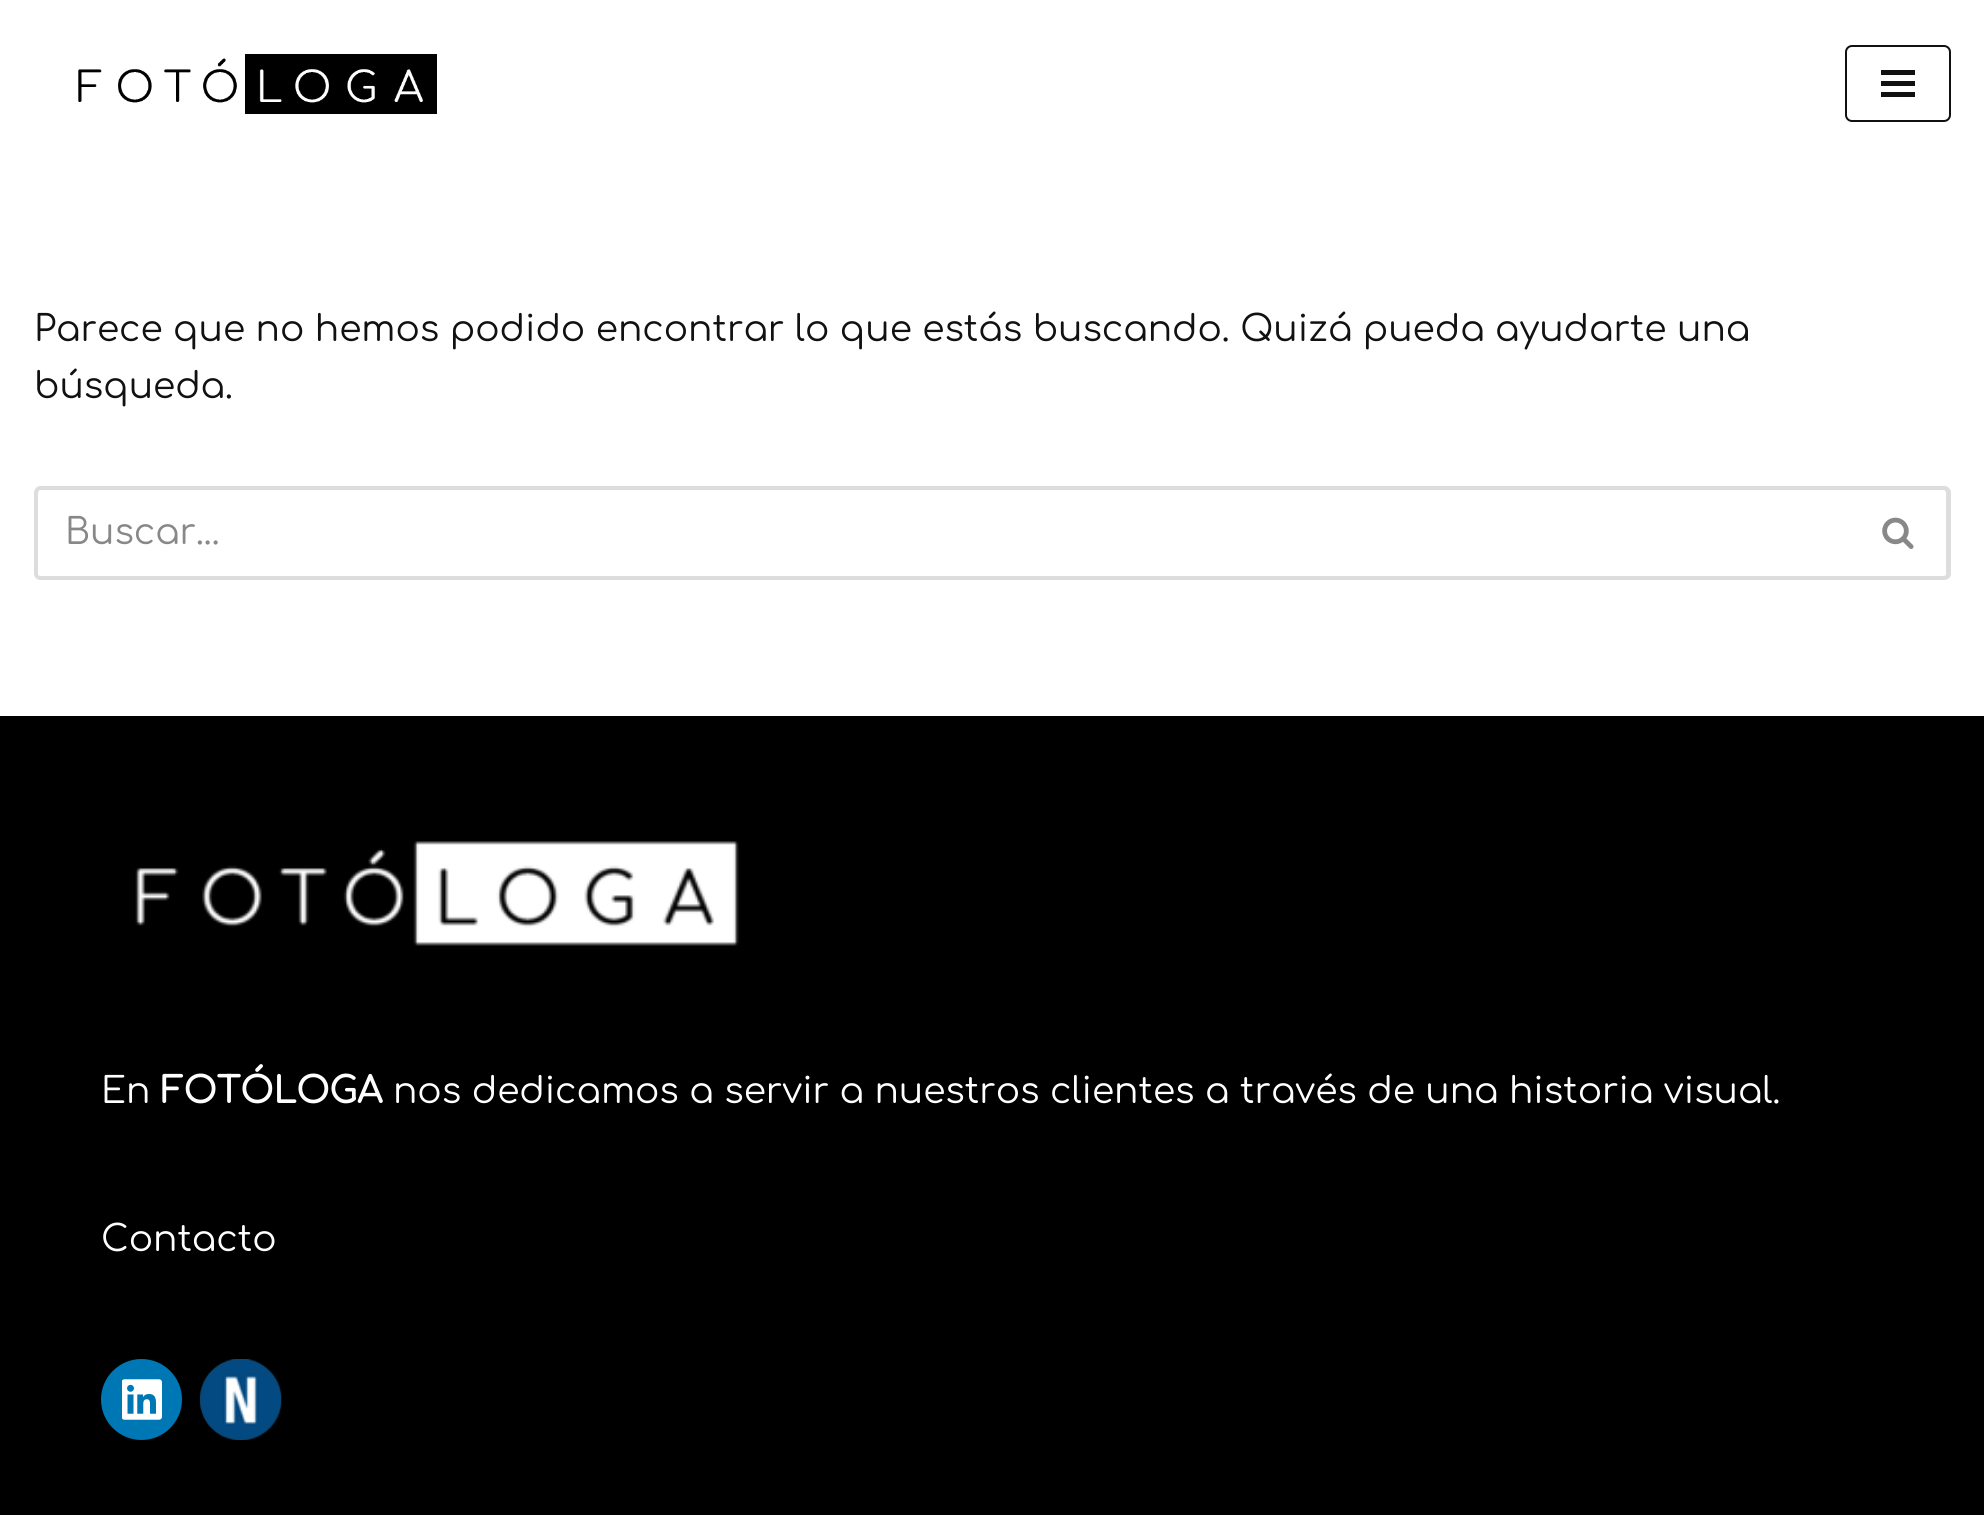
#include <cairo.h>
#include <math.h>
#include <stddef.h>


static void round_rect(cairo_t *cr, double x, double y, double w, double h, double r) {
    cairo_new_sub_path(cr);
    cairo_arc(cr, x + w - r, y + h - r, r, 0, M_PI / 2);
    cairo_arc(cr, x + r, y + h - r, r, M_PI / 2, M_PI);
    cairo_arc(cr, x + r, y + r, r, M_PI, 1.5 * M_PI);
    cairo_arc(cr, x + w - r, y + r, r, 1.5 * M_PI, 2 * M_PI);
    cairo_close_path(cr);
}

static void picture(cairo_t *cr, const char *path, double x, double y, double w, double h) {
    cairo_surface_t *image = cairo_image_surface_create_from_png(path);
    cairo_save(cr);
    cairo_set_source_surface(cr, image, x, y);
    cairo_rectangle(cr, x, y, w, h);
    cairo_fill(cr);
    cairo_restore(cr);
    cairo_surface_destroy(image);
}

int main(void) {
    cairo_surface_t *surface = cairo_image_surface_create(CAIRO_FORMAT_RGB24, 1984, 1515);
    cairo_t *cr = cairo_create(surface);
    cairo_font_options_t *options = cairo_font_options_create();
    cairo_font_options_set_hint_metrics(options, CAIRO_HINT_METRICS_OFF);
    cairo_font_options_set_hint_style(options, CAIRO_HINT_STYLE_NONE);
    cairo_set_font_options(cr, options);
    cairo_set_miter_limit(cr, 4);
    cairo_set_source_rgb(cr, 1, 1, 1);
    cairo_paint(cr);
    picture(cr, "img1.png", 78, 54, 359, 60);
    round_rect(cr, 1846, 46, 104, 75, 6);
    cairo_set_source_rgb(cr, 0.067, 0.067, 0.067);
    cairo_stroke(cr);
    cairo_rectangle(cr, 1881, 70, 34, 5);
    cairo_fill(cr);
    cairo_rectangle(cr, 1881, 81, 34, 5);
    cairo_fill(cr);
    cairo_rectangle(cr, 1881, 92, 34, 5);
    cairo_fill(cr);
    cairo_select_font_face(cr, "Comfortaa", CAIRO_FONT_SLANT_NORMAL, CAIRO_FONT_WEIGHT_NORMAL);
    cairo_set_font_size(cr, 36);
    cairo_move_to(cr, 34, 341);
    cairo_show_text(cr, "Parece que no hemos podido encontrar lo que estás buscando. Quizá pueda ayudarte una");
    cairo_move_to(cr, 34, 398);
    cairo_show_text(cr, "búsqueda.");
    cairo_set_source_rgb(cr, 0.867, 0.867, 0.867);
    cairo_set_fill_rule(cr, CAIRO_FILL_RULE_EVEN_ODD);
    cairo_new_path(cr);
    cairo_move_to(cr, 40, 486);
    cairo_line_to(cr, 1850, 486);
    cairo_line_to(cr, 1850, 580);
    cairo_line_to(cr, 40, 580);
    cairo_curve_to(cr, 37, 580, 34, 577, 34, 574);
    cairo_line_to(cr, 34, 493);
    cairo_curve_to(cr, 34, 489, 37, 486, 40, 486);
    cairo_close_path(cr);
    cairo_move_to(cr, 40, 490);
    cairo_line_to(cr, 1850, 490);
    cairo_line_to(cr, 1850, 576);
    cairo_line_to(cr, 40, 576);
    cairo_curve_to(cr, 39, 576, 38, 575, 38, 574);
    cairo_line_to(cr, 38, 493);
    cairo_curve_to(cr, 38, 492, 39, 490, 40, 490);
    cairo_close_path(cr);
    cairo_fill(cr);
    cairo_set_source_rgb(cr, 0.533, 0.533, 0.533);
    cairo_move_to(cr, 65, 544);
    cairo_show_text(cr, "Buscar...");
    cairo_set_source_rgb(cr, 0.867, 0.867, 0.867);
    cairo_new_path(cr);
    cairo_move_to(cr, 1850, 486);
    cairo_line_to(cr, 1944, 486);
    cairo_curve_to(cr, 1948, 486, 1951, 489, 1951, 493);
    cairo_line_to(cr, 1951, 574);
    cairo_curve_to(cr, 1951, 577, 1948, 580, 1944, 580);
    cairo_line_to(cr, 1850, 580);
    cairo_close_path(cr);
    cairo_move_to(cr, 1850, 490);
    cairo_line_to(cr, 1944, 490);
    cairo_curve_to(cr, 1945, 490, 1946, 492, 1946, 493);
    cairo_line_to(cr, 1946, 574);
    cairo_curve_to(cr, 1946, 575, 1945, 576, 1944, 576);
    cairo_line_to(cr, 1850, 576);
    cairo_close_path(cr);
    cairo_fill(cr);
    picture(cr, "img2.png", 1882, 517, 32, 32);
    cairo_set_source_rgb(cr, 0, 0, 0);
    cairo_rectangle(cr, 0, 716, 1984, 799);
    cairo_fill(cr);
    picture(cr, "img3.png", 135, 841, 604, 105);
    cairo_set_source_rgb(cr, 1, 1, 1);
    cairo_move_to(cr, 101, 1103);
    cairo_show_text(cr, "En");
    cairo_select_font_face(cr, "Comfortaa", CAIRO_FONT_SLANT_NORMAL, CAIRO_FONT_WEIGHT_BOLD);
    cairo_move_to(cr, 161, 1103);
    cairo_show_text(cr, "FOTÓLOGA");
    cairo_select_font_face(cr, "Comfortaa", CAIRO_FONT_SLANT_NORMAL, CAIRO_FONT_WEIGHT_NORMAL);
    cairo_move_to(cr, 393, 1103);
    cairo_show_text(cr, "nos dedicamos a servir a nuestros clientes a través de una historia visual.");
    cairo_move_to(cr, 101, 1251);
    cairo_show_text(cr, "Contacto");
    cairo_set_source_rgb(cr, 0, 0.467, 0.71);
    cairo_new_path(cr);
    cairo_arc(cr, 141.5, 1399.5, 40.5, 0, 2 * M_PI);
    cairo_fill(cr);
    picture(cr, "img4.png", 122, 1379, 40, 41);
    cairo_set_source_rgb(cr, 0.2, 0.2, 0.2);
    cairo_arc(cr, 240.5, 1399.5, 40.5, 0, 2 * M_PI);
    cairo_fill(cr);
    picture(cr, "img5.png", 200, 1359, 82, 81);
    cairo_surface_write_to_png(surface, "page.png");
    cairo_font_options_destroy(options);
    cairo_destroy(cr);
    cairo_surface_destroy(surface);
    return 0;
}
